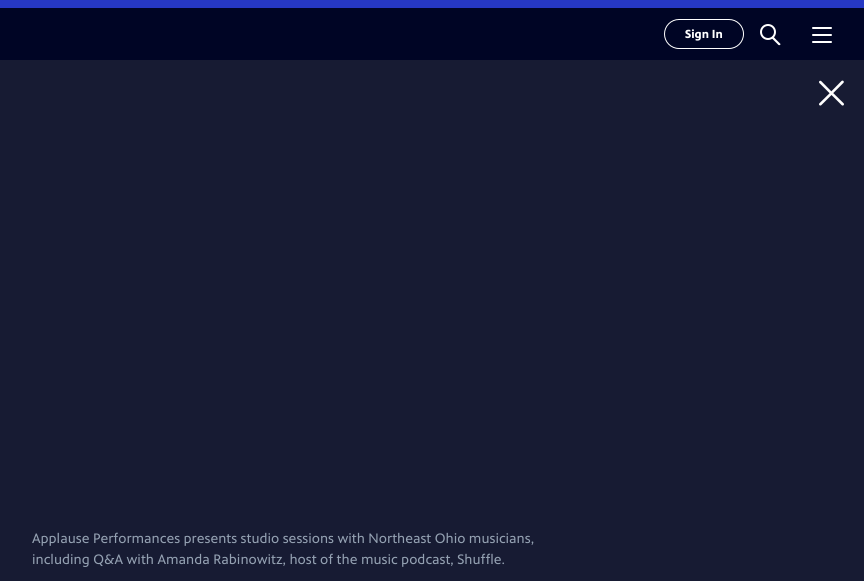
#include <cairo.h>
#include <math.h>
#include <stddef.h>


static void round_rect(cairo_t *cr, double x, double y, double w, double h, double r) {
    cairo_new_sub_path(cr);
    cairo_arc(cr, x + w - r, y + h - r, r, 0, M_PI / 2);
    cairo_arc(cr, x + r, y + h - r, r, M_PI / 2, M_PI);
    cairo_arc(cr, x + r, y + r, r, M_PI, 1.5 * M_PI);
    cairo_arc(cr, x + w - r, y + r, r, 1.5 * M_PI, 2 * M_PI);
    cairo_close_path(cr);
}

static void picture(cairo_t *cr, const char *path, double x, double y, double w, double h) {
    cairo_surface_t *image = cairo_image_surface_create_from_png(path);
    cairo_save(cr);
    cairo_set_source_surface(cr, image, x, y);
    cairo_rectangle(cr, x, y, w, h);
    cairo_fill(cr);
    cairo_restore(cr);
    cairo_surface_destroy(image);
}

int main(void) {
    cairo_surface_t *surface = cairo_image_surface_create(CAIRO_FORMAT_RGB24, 864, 581);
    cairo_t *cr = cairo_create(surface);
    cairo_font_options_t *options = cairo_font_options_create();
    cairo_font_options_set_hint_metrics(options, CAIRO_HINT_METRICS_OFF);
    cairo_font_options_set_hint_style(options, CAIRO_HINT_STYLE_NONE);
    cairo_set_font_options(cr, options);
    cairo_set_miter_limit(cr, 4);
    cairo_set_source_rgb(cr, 0, 0.02, 0.145);
    cairo_paint(cr);
    cairo_set_source_rgb(cr, 0.149, 0.22, 0.769);
    cairo_rectangle(cr, 0, 0, 864, 8);
    cairo_fill(cr);
    round_rect(cr, 664.5, 19.5, 79, 29, 14.5);
    cairo_set_source_rgb(cr, 1, 1, 1);
    cairo_set_line_width(cr, 1);
    cairo_stroke(cr);
    cairo_select_font_face(cr, "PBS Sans", CAIRO_FONT_SLANT_NORMAL, CAIRO_FONT_WEIGHT_BOLD);
    cairo_set_font_size(cr, 12);
    cairo_move_to(cr, 685, 38);
    cairo_show_text(cr, "Sign In");
    cairo_new_path(cr);
    cairo_arc(cr, 768, 32, 7, 0, 2 * M_PI);
    cairo_set_line_width(cr, 2);
    cairo_stroke(cr);
    cairo_new_path(cr);
    cairo_move_to(cr, 778.5, 45);
    cairo_line_to(cr, 771.5, 38);
    cairo_line_to(cr, 772, 37);
    cairo_curve_to(cr, 773, 35.5, 775, 38.5, 775.5, 39);
    cairo_line_to(cr, 780.5, 44);
    cairo_curve_to(cr, 780.5, 45, 779.5, 45.5, 778.5, 45);
    cairo_close_path(cr);
    cairo_fill(cr);
    round_rect(cr, 812, 27, 20, 2, 1);
    cairo_fill(cr);
    round_rect(cr, 812, 34, 20, 2, 1);
    cairo_fill(cr);
    round_rect(cr, 812, 41, 20, 2, 1);
    cairo_fill(cr);
    cairo_set_source_rgb(cr, 0.09, 0.106, 0.2);
    cairo_rectangle(cr, 0, 60, 864, 521);
    cairo_fill(cr);
    picture(cr, "img1.png", 819, 80, 25, 26);
    cairo_select_font_face(cr, "PBS Sans", CAIRO_FONT_SLANT_NORMAL, CAIRO_FONT_WEIGHT_NORMAL);
    cairo_set_font_size(cr, 14);
    cairo_set_source_rgb(cr, 0.58, 0.631, 0.698);
    cairo_move_to(cr, 32, 543);
    cairo_show_text(cr, "Applause Performances presents studio sessions with Northeast Ohio musicians,");
    cairo_move_to(cr, 32, 564);
    cairo_show_text(cr, "including Q&A with Amanda Rabinowitz, host of the music podcast, Shuffle.");
    cairo_surface_write_to_png(surface, "page.png");
    cairo_font_options_destroy(options);
    cairo_destroy(cr);
    cairo_surface_destroy(surface);
    return 0;
}
